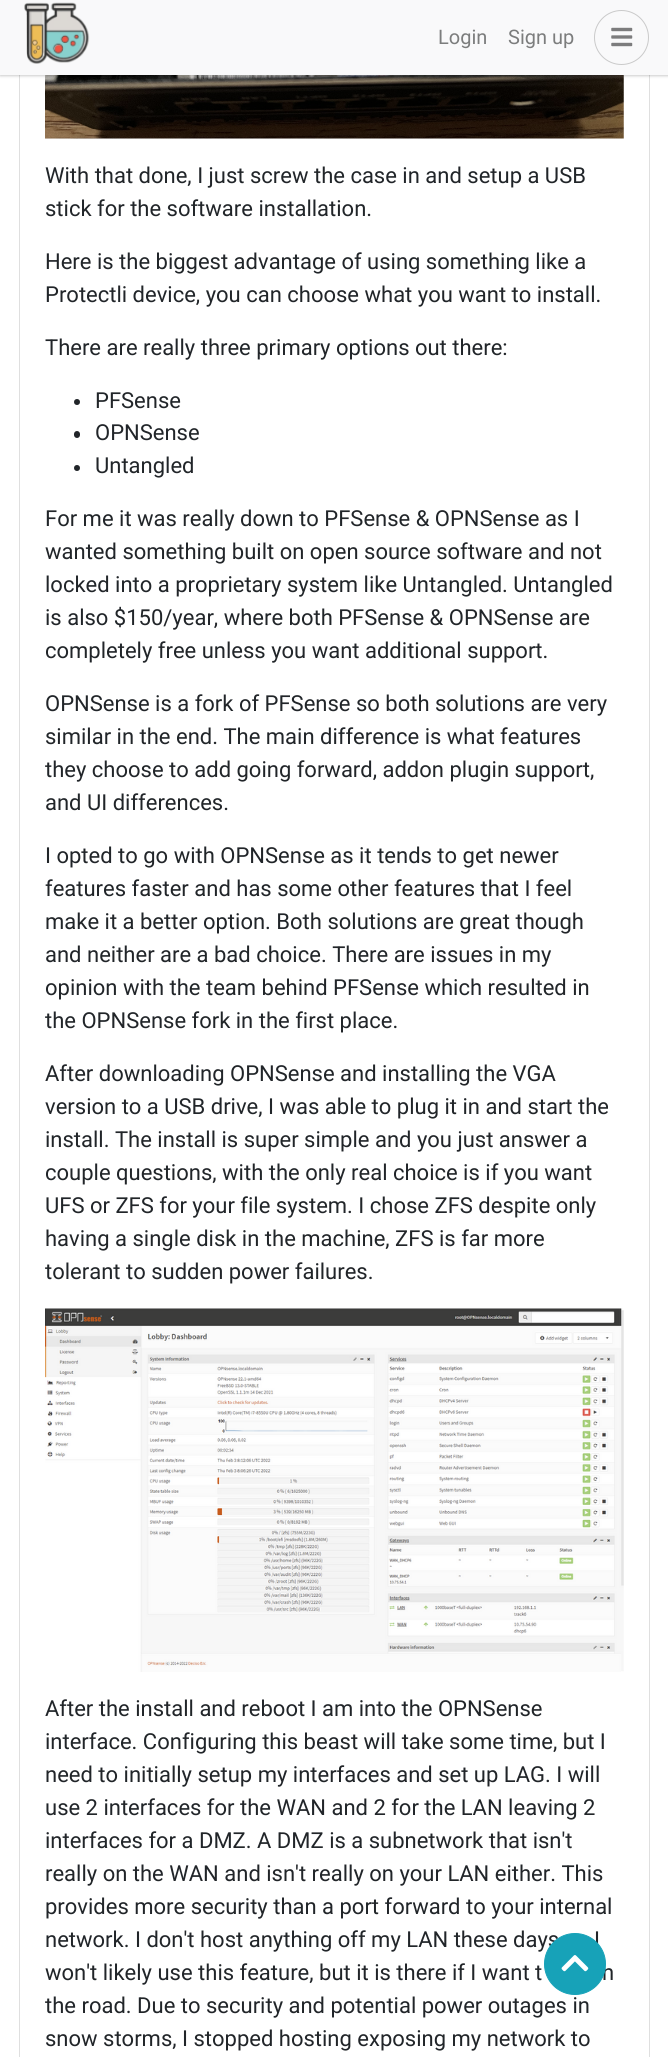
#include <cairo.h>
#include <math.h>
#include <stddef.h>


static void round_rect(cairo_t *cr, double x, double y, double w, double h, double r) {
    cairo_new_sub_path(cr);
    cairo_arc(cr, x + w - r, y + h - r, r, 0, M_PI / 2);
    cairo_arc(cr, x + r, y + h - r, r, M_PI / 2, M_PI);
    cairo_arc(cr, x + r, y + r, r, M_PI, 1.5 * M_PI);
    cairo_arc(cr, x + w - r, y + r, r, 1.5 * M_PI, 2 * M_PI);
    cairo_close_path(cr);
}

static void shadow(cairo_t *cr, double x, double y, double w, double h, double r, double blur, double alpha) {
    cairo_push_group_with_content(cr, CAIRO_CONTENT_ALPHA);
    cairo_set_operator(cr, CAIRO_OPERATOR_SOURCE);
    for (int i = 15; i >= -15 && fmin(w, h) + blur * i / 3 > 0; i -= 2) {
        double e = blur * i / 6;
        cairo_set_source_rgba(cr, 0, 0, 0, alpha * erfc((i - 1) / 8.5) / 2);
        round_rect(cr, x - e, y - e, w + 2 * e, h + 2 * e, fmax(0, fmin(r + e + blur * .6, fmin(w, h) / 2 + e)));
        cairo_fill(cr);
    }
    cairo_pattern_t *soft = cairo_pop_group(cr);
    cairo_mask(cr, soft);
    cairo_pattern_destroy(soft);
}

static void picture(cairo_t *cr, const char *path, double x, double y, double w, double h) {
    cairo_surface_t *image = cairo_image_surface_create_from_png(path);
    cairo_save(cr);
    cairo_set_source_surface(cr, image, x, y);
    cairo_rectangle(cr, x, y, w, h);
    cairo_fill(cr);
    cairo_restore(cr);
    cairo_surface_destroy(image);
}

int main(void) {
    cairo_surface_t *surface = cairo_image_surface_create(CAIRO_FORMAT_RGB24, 668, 2057);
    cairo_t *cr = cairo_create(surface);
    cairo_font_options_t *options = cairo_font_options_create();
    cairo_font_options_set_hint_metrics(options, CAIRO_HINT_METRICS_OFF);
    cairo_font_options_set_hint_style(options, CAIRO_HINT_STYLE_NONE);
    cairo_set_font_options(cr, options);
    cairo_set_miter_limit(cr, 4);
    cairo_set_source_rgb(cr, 1, 1, 1);
    cairo_paint(cr);
    cairo_rectangle(cr, 19.5, -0.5, 630, 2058);
    cairo_set_source_rgb(cr, 0.875, 0.875, 0.875);
    cairo_set_line_width(cr, 1);
    cairo_stroke(cr);
    picture(cr, "img3.png", 45, 75, 579, 64);
    cairo_set_source_rgb(cr, 0, 0, 0);
    shadow(cr, 0, 1, 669, 75, 0, 1, 0.14);
    shadow(cr, 0, 1, 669, 75, 0, 2, 0.07);
    cairo_set_source_rgb(cr, 0.973, 0.976, 0.98);
    cairo_rectangle(cr, 0, 0, 668, 75);
    cairo_fill(cr);
    picture(cr, "img1.png", 24, 2, 66, 62);
    cairo_select_font_face(cr, "Roboto", CAIRO_FONT_SLANT_NORMAL, CAIRO_FONT_WEIGHT_NORMAL);
    cairo_set_font_size(cr, 20);
    cairo_set_source_rgb(cr, 0.486, 0.49, 0.49);
    cairo_move_to(cr, 438, 44);
    cairo_show_text(cr, "Login");
    cairo_move_to(cr, 508, 44);
    cairo_show_text(cr, "Sign up");
    cairo_new_path(cr);
    cairo_arc(cr, 621.5, 37.5, 27, 0, 2 * M_PI);
    cairo_set_source_rgb(cr, 0.792, 0.792, 0.792);
    cairo_stroke(cr);
    picture(cr, "img2.png", 611, 27, 22, 20);
    cairo_set_font_size(cr, 22);
    cairo_set_source_rgb(cr, 0.129, 0.145, 0.161);
    cairo_move_to(cr, 45, 183);
    cairo_show_text(cr, "With that done, I just screw the case in and setup a USB");
    cairo_move_to(cr, 45, 216);
    cairo_show_text(cr, "stick for the software installation.");
    cairo_move_to(cr, 45, 269);
    cairo_show_text(cr, "Here is the biggest advantage of using something like a");
    cairo_move_to(cr, 45, 302);
    cairo_show_text(cr, "Protectli device, you can choose what you want to install.");
    cairo_move_to(cr, 45, 355);
    cairo_show_text(cr, "There are really three primary options out there:");
    cairo_new_path(cr);
    cairo_arc(cr, 77, 402, 3, 0, 2 * M_PI);
    cairo_fill(cr);
    cairo_move_to(cr, 95, 408);
    cairo_show_text(cr, "PFSense");
    round_rect(cr, 74, 431, 6, 7, 3);
    cairo_fill(cr);
    cairo_move_to(cr, 95, 440);
    cairo_show_text(cr, "OPNSense");
    cairo_new_path(cr);
    cairo_arc(cr, 77, 468, 3, 0, 2 * M_PI);
    cairo_fill(cr);
    cairo_move_to(cr, 95, 473);
    cairo_show_text(cr, "Untangled");
    cairo_move_to(cr, 45, 526);
    cairo_show_text(cr, "For me it was really down to PFSense & OPNSense as I");
    cairo_move_to(cr, 45, 559);
    cairo_show_text(cr, "wanted something built on open source software and not");
    cairo_move_to(cr, 45, 592);
    cairo_show_text(cr, "locked into a proprietary system like Untangled. Untangled");
    cairo_move_to(cr, 45, 625);
    cairo_show_text(cr, "is also $150/year, where both PFSense & OPNSense are");
    cairo_move_to(cr, 45, 658);
    cairo_show_text(cr, "completely free unless you want additional support.");
    cairo_move_to(cr, 45, 711);
    cairo_show_text(cr, "OPNSense is a fork of PFSense so both solutions are very");
    cairo_move_to(cr, 45, 744);
    cairo_show_text(cr, "similar in the end. The main difference is what features");
    cairo_move_to(cr, 45, 777);
    cairo_show_text(cr, "they choose to add going forward, addon plugin support,");
    cairo_move_to(cr, 45, 810);
    cairo_show_text(cr, "and UI differences.");
    cairo_move_to(cr, 45, 863);
    cairo_show_text(cr, "I opted to go with OPNSense as it tends to get newer");
    cairo_move_to(cr, 45, 896);
    cairo_show_text(cr, "features faster and has some other features that I feel");
    cairo_move_to(cr, 45, 929);
    cairo_show_text(cr, "make it a better option. Both solutions are great though");
    cairo_move_to(cr, 45, 962);
    cairo_show_text(cr, "and neither are a bad choice. There are issues in my");
    cairo_move_to(cr, 45, 995);
    cairo_show_text(cr, "opinion with the team behind PFSense which resulted in");
    cairo_move_to(cr, 45, 1028);
    cairo_show_text(cr, "the OPNSense fork in the first place.");
    cairo_move_to(cr, 45, 1081);
    cairo_show_text(cr, "After downloading OPNSense and installing the VGA");
    cairo_move_to(cr, 45, 1114);
    cairo_show_text(cr, "version to a USB drive, I was able to plug it in and start the");
    cairo_move_to(cr, 45, 1147);
    cairo_show_text(cr, "install. The install is super simple and you just answer a");
    cairo_move_to(cr, 45, 1180);
    cairo_show_text(cr, "couple questions, with the only real choice is if you want");
    cairo_move_to(cr, 45, 1213);
    cairo_show_text(cr, "UFS or ZFS for your file system. I chose ZFS despite only");
    cairo_move_to(cr, 45, 1246);
    cairo_show_text(cr, "having a single disk in the machine, ZFS is far more");
    cairo_move_to(cr, 45, 1279);
    cairo_show_text(cr, "tolerant to sudden power failures.");
    picture(cr, "img4.png", 45, 1308, 579, 364);
    cairo_move_to(cr, 45, 1716);
    cairo_show_text(cr, "After the install and reboot I am into the OPNSense");
    cairo_move_to(cr, 45, 1749);
    cairo_show_text(cr, "interface. Configuring this beast will take some time, but I");
    cairo_move_to(cr, 45, 1782);
    cairo_show_text(cr, "need to initially setup my interfaces and set up LAG. I will");
    cairo_move_to(cr, 45, 1815);
    cairo_show_text(cr, "use 2 interfaces for the WAN and 2 for the LAN leaving 2");
    cairo_move_to(cr, 45, 1848);
    cairo_show_text(cr, "interfaces for a DMZ. A DMZ is a subnetwork that isn't");
    cairo_move_to(cr, 45, 1881);
    cairo_show_text(cr, "really on the WAN and isn't really on your LAN either. This");
    cairo_move_to(cr, 45, 1914);
    cairo_show_text(cr, "provides more security than a port forward to your internal");
    cairo_move_to(cr, 45, 1947);
    cairo_show_text(cr, "network. I don't host anything off my LAN these days");
    cairo_move_to(cr, 594, 1947);
    cairo_show_text(cr, "I");
    cairo_move_to(cr, 45, 1980);
    cairo_show_text(cr, "won't likely use this feature, but it is there if I want t");
    cairo_move_to(cr, 602, 1980);
    cairo_show_text(cr, "n");
    cairo_move_to(cr, 45, 2013);
    cairo_show_text(cr, "the road. Due to security and potential power outages in");
    cairo_move_to(cr, 45, 2046);
    cairo_show_text(cr, "snow storms, I stopped hosting exposing my network to");
    cairo_set_source_rgb(cr, 0.09, 0.635, 0.722);
    cairo_new_path(cr);
    cairo_arc(cr, 575, 1964, 30.5, 0, 2 * M_PI);
    cairo_fill_preserve(cr);
    cairo_stroke(cr);
    picture(cr, "img5.png", 561, 1955, 28, 17);
    cairo_surface_write_to_png(surface, "page.png");
    cairo_font_options_destroy(options);
    cairo_destroy(cr);
    cairo_surface_destroy(surface);
    return 0;
}
